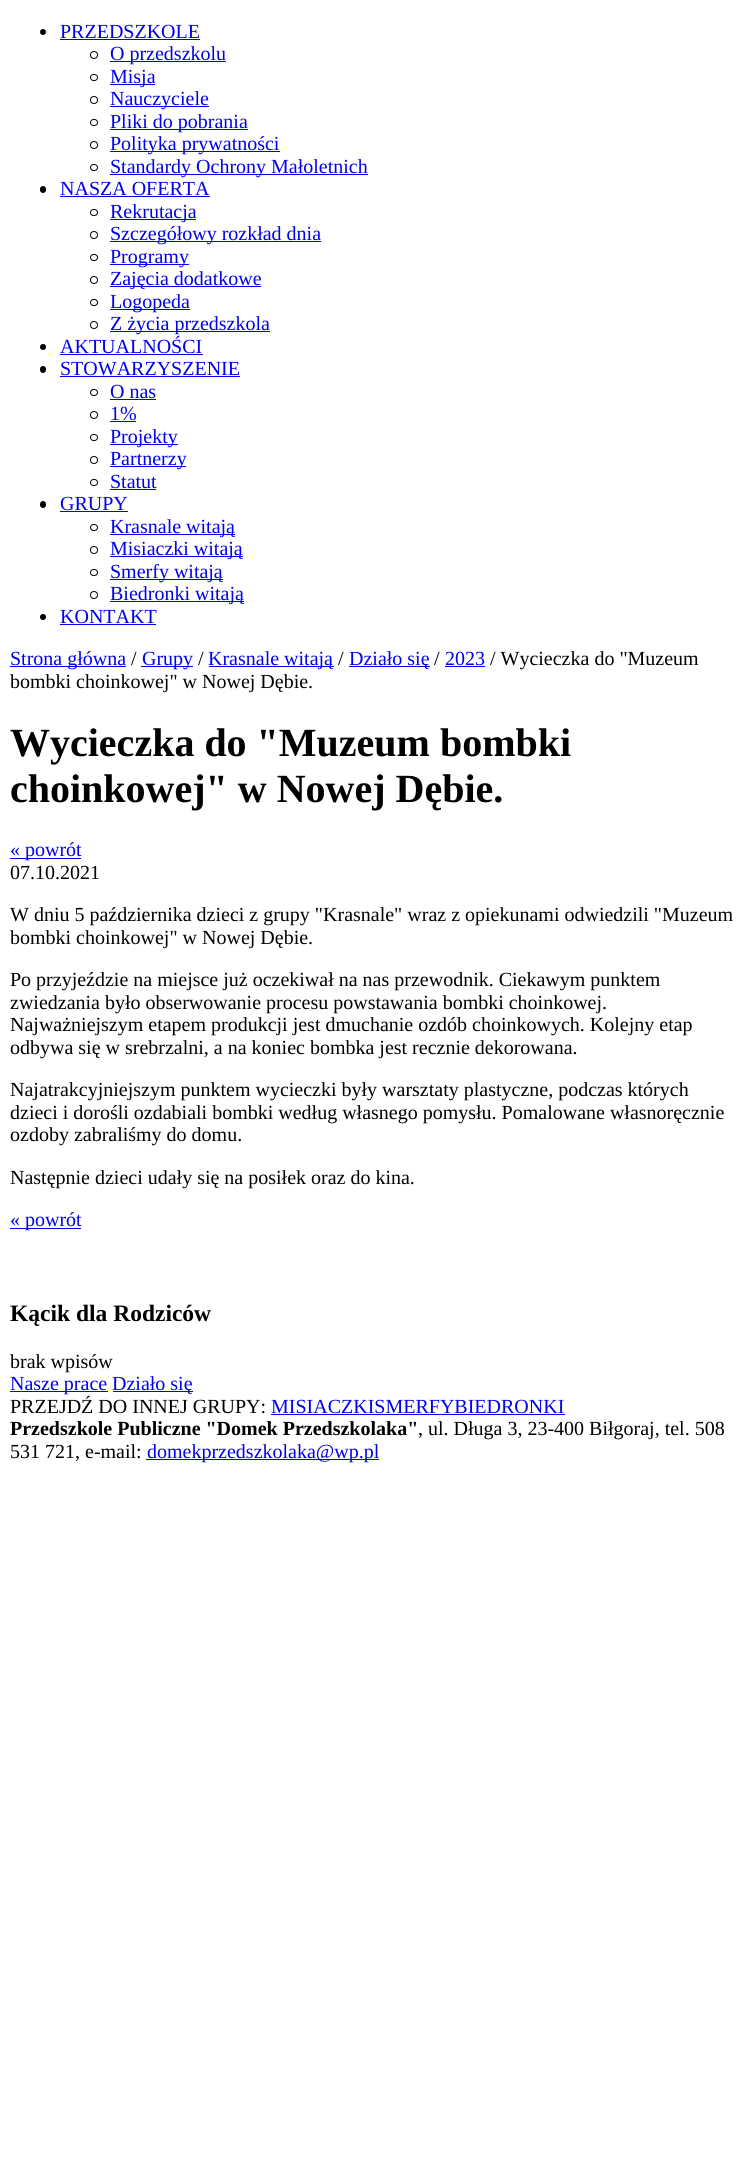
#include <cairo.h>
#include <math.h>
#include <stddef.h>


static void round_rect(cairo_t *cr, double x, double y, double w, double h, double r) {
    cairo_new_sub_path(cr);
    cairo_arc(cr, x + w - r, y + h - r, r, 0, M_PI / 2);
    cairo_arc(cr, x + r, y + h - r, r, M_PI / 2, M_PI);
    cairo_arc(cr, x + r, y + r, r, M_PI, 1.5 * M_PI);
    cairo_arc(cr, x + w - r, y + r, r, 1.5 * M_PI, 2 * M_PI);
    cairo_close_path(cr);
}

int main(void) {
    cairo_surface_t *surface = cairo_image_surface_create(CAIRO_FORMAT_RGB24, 748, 2177);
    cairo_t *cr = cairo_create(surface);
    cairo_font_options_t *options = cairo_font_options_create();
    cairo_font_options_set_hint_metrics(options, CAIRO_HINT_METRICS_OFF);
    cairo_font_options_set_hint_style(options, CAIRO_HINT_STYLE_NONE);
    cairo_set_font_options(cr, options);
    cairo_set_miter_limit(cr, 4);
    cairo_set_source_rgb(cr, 1, 1, 1);
    cairo_paint(cr);
    cairo_set_source_rgb(cr, 0, 0, 0);
    cairo_arc(cr, 43, 32, 3, 0, 2 * M_PI);
    cairo_fill(cr);
    cairo_select_font_face(cr, "Liberation Serif", CAIRO_FONT_SLANT_NORMAL, CAIRO_FONT_WEIGHT_NORMAL);
    cairo_set_font_size(cr, 20);
    cairo_set_source_rgb(cr, 0, 0, 0.933);
    cairo_move_to(cr, 60, 38);
    cairo_show_text(cr, "PRZEDSZKOLE");
    cairo_rectangle(cr, 60, 39, 140, 1);
    cairo_fill(cr);
    cairo_arc(cr, 94, 55, 3.5, 0, 2 * M_PI);
    cairo_set_source_rgb(cr, 0, 0, 0);
    cairo_set_line_width(cr, 1);
    cairo_stroke(cr);
    cairo_set_source_rgb(cr, 0, 0, 0.933);
    cairo_rectangle(cr, 110, 61, 116, 1);
    cairo_fill(cr);
    cairo_move_to(cr, 110, 60);
    cairo_show_text(cr, "O przedszkolu");
    round_rect(cr, 90.5, 74.5, 7, 6, 3);
    cairo_set_source_rgb(cr, 0, 0, 0);
    cairo_stroke(cr);
    cairo_set_source_rgb(cr, 0, 0, 0.933);
    cairo_rectangle(cr, 110, 84, 45, 1);
    cairo_fill(cr);
    cairo_move_to(cr, 110, 83);
    cairo_show_text(cr, "Misja");
    cairo_new_path(cr);
    cairo_arc(cr, 94, 100, 3.5, 0, 2 * M_PI);
    cairo_set_source_rgb(cr, 0, 0, 0);
    cairo_stroke(cr);
    cairo_set_source_rgb(cr, 0, 0, 0.933);
    cairo_rectangle(cr, 110, 106, 99, 1);
    cairo_fill(cr);
    cairo_move_to(cr, 110, 105);
    cairo_show_text(cr, "Nauczyciele");
    round_rect(cr, 90.5, 119.5, 7, 6, 3);
    cairo_set_source_rgb(cr, 0, 0, 0);
    cairo_stroke(cr);
    cairo_set_source_rgb(cr, 0, 0, 0.933);
    cairo_rectangle(cr, 110, 129, 138, 1);
    cairo_fill(cr);
    cairo_move_to(cr, 110, 128);
    cairo_show_text(cr, "Pliki do pobrania");
    cairo_new_path(cr);
    cairo_arc(cr, 94, 145, 3.5, 0, 2 * M_PI);
    cairo_set_source_rgb(cr, 0, 0, 0);
    cairo_stroke(cr);
    cairo_set_source_rgb(cr, 0, 0, 0.933);
    cairo_rectangle(cr, 110, 151, 170, 1);
    cairo_fill(cr);
    cairo_move_to(cr, 110, 150);
    cairo_show_text(cr, "Polityka prywatności");
    round_rect(cr, 90.5, 164.5, 7, 6, 3);
    cairo_set_source_rgb(cr, 0, 0, 0);
    cairo_stroke(cr);
    cairo_set_source_rgb(cr, 0, 0, 0.933);
    cairo_rectangle(cr, 110, 174, 258, 1);
    cairo_fill(cr);
    cairo_move_to(cr, 110, 173);
    cairo_show_text(cr, "Standardy Ochrony Małoletnich");
    cairo_set_source_rgb(cr, 0, 0, 0);
    round_rect(cr, 40, 186, 6, 7, 3);
    cairo_fill(cr);
    cairo_set_source_rgb(cr, 0, 0, 0.933);
    cairo_move_to(cr, 60, 195);
    cairo_show_text(cr, "NASZA OFERTA");
    cairo_rectangle(cr, 60, 196, 150, 1);
    cairo_fill(cr);
    round_rect(cr, 90.5, 209.5, 7, 6, 3);
    cairo_set_source_rgb(cr, 0, 0, 0);
    cairo_stroke(cr);
    cairo_set_source_rgb(cr, 0, 0, 0.933);
    cairo_rectangle(cr, 110, 219, 86, 1);
    cairo_fill(cr);
    cairo_move_to(cr, 110, 218);
    cairo_show_text(cr, "Rekrutacja");
    cairo_new_path(cr);
    cairo_arc(cr, 94, 235, 3.5, 0, 2 * M_PI);
    cairo_set_source_rgb(cr, 0, 0, 0);
    cairo_stroke(cr);
    cairo_set_source_rgb(cr, 0, 0, 0.933);
    cairo_rectangle(cr, 110, 241, 211, 1);
    cairo_fill(cr);
    cairo_move_to(cr, 110, 240);
    cairo_show_text(cr, "Szczegółowy rozkład dnia");
    round_rect(cr, 90.5, 254.5, 7, 6, 3);
    cairo_set_source_rgb(cr, 0, 0, 0);
    cairo_stroke(cr);
    cairo_set_source_rgb(cr, 0, 0, 0.933);
    cairo_rectangle(cr, 110, 264, 79, 1);
    cairo_fill(cr);
    cairo_move_to(cr, 110, 263);
    cairo_show_text(cr, "Programy");
    cairo_new_path(cr);
    cairo_arc(cr, 94, 280, 3.5, 0, 2 * M_PI);
    cairo_set_source_rgb(cr, 0, 0, 0);
    cairo_stroke(cr);
    cairo_set_source_rgb(cr, 0, 0, 0.933);
    cairo_rectangle(cr, 110, 286, 151, 1);
    cairo_fill(cr);
    cairo_move_to(cr, 110, 285);
    cairo_show_text(cr, "Zajęcia dodatkowe");
    round_rect(cr, 90.5, 299.5, 7, 6, 3);
    cairo_set_source_rgb(cr, 0, 0, 0);
    cairo_stroke(cr);
    cairo_set_source_rgb(cr, 0, 0, 0.933);
    cairo_rectangle(cr, 110, 309, 80, 1);
    cairo_fill(cr);
    cairo_move_to(cr, 110, 308);
    cairo_show_text(cr, "Logopeda");
    cairo_new_path(cr);
    cairo_arc(cr, 94, 325, 3.5, 0, 2 * M_PI);
    cairo_set_source_rgb(cr, 0, 0, 0);
    cairo_stroke(cr);
    cairo_set_source_rgb(cr, 0, 0, 0.933);
    cairo_rectangle(cr, 110, 331, 160, 1);
    cairo_fill(cr);
    cairo_move_to(cr, 110, 330);
    cairo_show_text(cr, "Z życia przedszkola");
    cairo_set_source_rgb(cr, 0, 0, 0);
    cairo_new_path(cr);
    cairo_arc(cr, 43, 347, 3, 0, 2 * M_PI);
    cairo_fill(cr);
    cairo_set_source_rgb(cr, 0, 0, 0.933);
    cairo_move_to(cr, 60, 353);
    cairo_show_text(cr, "AKTUALNOŚCI");
    cairo_rectangle(cr, 60, 354, 143, 1);
    cairo_fill(cr);
    cairo_set_source_rgb(cr, 0, 0, 0);
    round_rect(cr, 40, 366, 6, 7, 3);
    cairo_fill(cr);
    cairo_set_source_rgb(cr, 0, 0, 0.933);
    cairo_move_to(cr, 60, 375);
    cairo_show_text(cr, "STOWARZYSZENIE");
    cairo_rectangle(cr, 60, 376, 180, 1);
    cairo_fill(cr);
    round_rect(cr, 90.5, 389.5, 7, 6, 3);
    cairo_set_source_rgb(cr, 0, 0, 0);
    cairo_stroke(cr);
    cairo_set_source_rgb(cr, 0, 0, 0.933);
    cairo_move_to(cr, 110, 398);
    cairo_show_text(cr, "O nas");
    cairo_rectangle(cr, 110, 399, 46, 1);
    cairo_fill(cr);
    cairo_arc(cr, 94, 415, 3.5, 0, 2 * M_PI);
    cairo_set_source_rgb(cr, 0, 0, 0);
    cairo_stroke(cr);
    cairo_set_source_rgb(cr, 0, 0, 0.933);
    cairo_move_to(cr, 110, 420);
    cairo_show_text(cr, "1%");
    cairo_rectangle(cr, 110, 421, 26, 1);
    cairo_fill(cr);
    round_rect(cr, 90.5, 434.5, 7, 6, 3);
    cairo_set_source_rgb(cr, 0, 0, 0);
    cairo_stroke(cr);
    cairo_set_source_rgb(cr, 0, 0, 0.933);
    cairo_rectangle(cr, 110, 444, 68, 1);
    cairo_fill(cr);
    cairo_move_to(cr, 110, 443);
    cairo_show_text(cr, "Projekty");
    cairo_new_path(cr);
    cairo_arc(cr, 94, 460, 3.5, 0, 2 * M_PI);
    cairo_set_source_rgb(cr, 0, 0, 0);
    cairo_stroke(cr);
    cairo_set_source_rgb(cr, 0, 0, 0.933);
    cairo_rectangle(cr, 110, 466, 76, 1);
    cairo_fill(cr);
    cairo_move_to(cr, 110, 465);
    cairo_show_text(cr, "Partnerzy");
    round_rect(cr, 90.5, 479.5, 7, 6, 3);
    cairo_set_source_rgb(cr, 0, 0, 0);
    cairo_stroke(cr);
    cairo_set_source_rgb(cr, 0, 0, 0.933);
    cairo_move_to(cr, 110, 488);
    cairo_show_text(cr, "Statut");
    cairo_rectangle(cr, 110, 489, 46, 1);
    cairo_fill(cr);
    cairo_set_source_rgb(cr, 0, 0, 0);
    round_rect(cr, 40, 501, 6, 7, 3);
    cairo_fill(cr);
    cairo_set_source_rgb(cr, 0, 0, 0.933);
    cairo_move_to(cr, 60, 510);
    cairo_show_text(cr, "GRUPY");
    cairo_rectangle(cr, 60, 511, 68, 1);
    cairo_fill(cr);
    round_rect(cr, 90.5, 524.5, 7, 6, 3);
    cairo_set_source_rgb(cr, 0, 0, 0);
    cairo_stroke(cr);
    cairo_set_source_rgb(cr, 0, 0, 0.933);
    cairo_rectangle(cr, 110, 534, 125, 1);
    cairo_fill(cr);
    cairo_move_to(cr, 110, 533);
    cairo_show_text(cr, "Krasnale witają");
    cairo_new_path(cr);
    cairo_arc(cr, 94, 550, 3.5, 0, 2 * M_PI);
    cairo_set_source_rgb(cr, 0, 0, 0);
    cairo_stroke(cr);
    cairo_set_source_rgb(cr, 0, 0, 0.933);
    cairo_rectangle(cr, 110, 556, 133, 1);
    cairo_fill(cr);
    cairo_move_to(cr, 110, 555);
    cairo_show_text(cr, "Misiaczki witają");
    round_rect(cr, 90.5, 569.5, 7, 6, 3);
    cairo_set_source_rgb(cr, 0, 0, 0);
    cairo_stroke(cr);
    cairo_set_source_rgb(cr, 0, 0, 0.933);
    cairo_rectangle(cr, 110, 579, 113, 1);
    cairo_fill(cr);
    cairo_move_to(cr, 110, 578);
    cairo_show_text(cr, "Smerfy witają");
    cairo_new_path(cr);
    cairo_arc(cr, 94, 595, 3.5, 0, 2 * M_PI);
    cairo_set_source_rgb(cr, 0, 0, 0);
    cairo_stroke(cr);
    cairo_set_source_rgb(cr, 0, 0, 0.933);
    cairo_rectangle(cr, 110, 601, 134, 1);
    cairo_fill(cr);
    cairo_move_to(cr, 110, 600);
    cairo_show_text(cr, "Biedronki witają");
    cairo_set_source_rgb(cr, 0, 0, 0);
    cairo_new_path(cr);
    cairo_arc(cr, 43, 617, 3, 0, 2 * M_PI);
    cairo_fill(cr);
    cairo_set_source_rgb(cr, 0, 0, 0.933);
    cairo_move_to(cr, 60, 623);
    cairo_show_text(cr, "KONTAKT");
    cairo_rectangle(cr, 60, 624, 96, 1);
    cairo_fill(cr);
    cairo_rectangle(cr, 10, 666, 116, 1);
    cairo_fill(cr);
    cairo_move_to(cr, 10, 665);
    cairo_show_text(cr, "Strona główna");
    cairo_set_source_rgb(cr, 0, 0, 0);
    cairo_move_to(cr, 131, 665);
    cairo_show_text(cr, "/");
    cairo_set_source_rgb(cr, 0, 0, 0.933);
    cairo_rectangle(cr, 141, 666, 52, 1);
    cairo_fill(cr);
    cairo_move_to(cr, 142, 665);
    cairo_show_text(cr, "Grupy");
    cairo_set_source_rgb(cr, 0, 0, 0);
    cairo_move_to(cr, 198, 665);
    cairo_show_text(cr, "/");
    cairo_set_source_rgb(cr, 0, 0, 0.933);
    cairo_rectangle(cr, 209, 666, 125, 1);
    cairo_fill(cr);
    cairo_move_to(cr, 208, 665);
    cairo_show_text(cr, "Krasnale witają");
    cairo_set_source_rgb(cr, 0, 0, 0);
    cairo_move_to(cr, 338, 665);
    cairo_show_text(cr, "/");
    cairo_set_source_rgb(cr, 0, 0, 0.933);
    cairo_rectangle(cr, 349, 666, 81, 1);
    cairo_fill(cr);
    cairo_move_to(cr, 349, 665);
    cairo_show_text(cr, "Działo się");
    cairo_set_source_rgb(cr, 0, 0, 0);
    cairo_move_to(cr, 434, 665);
    cairo_show_text(cr, "/");
    cairo_set_source_rgb(cr, 0, 0, 0.933);
    cairo_move_to(cr, 445, 665);
    cairo_show_text(cr, "2023");
    cairo_rectangle(cr, 445, 666, 40, 1);
    cairo_fill(cr);
    cairo_set_source_rgb(cr, 0, 0, 0);
    cairo_move_to(cr, 490, 665);
    cairo_show_text(cr, "/ Wycieczka do \"Muzeum");
    cairo_move_to(cr, 10, 688);
    cairo_show_text(cr, "bombki choinkowej\" w Nowej Dębie.");
    cairo_select_font_face(cr, "Liberation Serif", CAIRO_FONT_SLANT_NORMAL, CAIRO_FONT_WEIGHT_BOLD);
    cairo_set_font_size(cr, 40);
    cairo_move_to(cr, 10, 756);
    cairo_show_text(cr, "Wycieczka do \"Muzeum bombki");
    cairo_move_to(cr, 10, 802);
    cairo_show_text(cr, "choinkowej\" w Nowej Dębie.");
    cairo_set_source_rgb(cr, 0, 0, 0.933);
    cairo_rectangle(cr, 10, 858, 71, 1);
    cairo_fill(cr);
    cairo_select_font_face(cr, "Liberation Serif", CAIRO_FONT_SLANT_NORMAL, CAIRO_FONT_WEIGHT_NORMAL);
    cairo_set_font_size(cr, 20);
    cairo_move_to(cr, 10, 856);
    cairo_show_text(cr, "« powrót");
    cairo_set_source_rgb(cr, 0, 0, 0);
    cairo_move_to(cr, 10, 879);
    cairo_show_text(cr, "07.10.2021");
    cairo_move_to(cr, 10, 921);
    cairo_show_text(cr, "W dniu 5 października dzieci z grupy \"Krasnale\" wraz z opiekunami odwiedzili \"Muzeum");
    cairo_move_to(cr, 10, 944);
    cairo_show_text(cr, "bombki choinkowej\" w Nowej Dębie.");
    cairo_move_to(cr, 10, 986);
    cairo_show_text(cr, "Po przyjeździe na miejsce już oczekiwał na nas przewodnik. Ciekawym punktem");
    cairo_move_to(cr, 10, 1009);
    cairo_show_text(cr, "zwiedzania było obserwowanie procesu powstawania bombki choinkowej.");
    cairo_move_to(cr, 10, 1031);
    cairo_show_text(cr, "Najważniejszym etapem produkcji jest dmuchanie ozdób choinkowych. Kolejny etap");
    cairo_move_to(cr, 10, 1054);
    cairo_show_text(cr, "odbywa się w srebrzalni, a na koniec bombka jest recznie dekorowana.");
    cairo_move_to(cr, 10, 1096);
    cairo_show_text(cr, "Najatrakcyjniejszym punktem wycieczki były warsztaty plastyczne, podczas których");
    cairo_move_to(cr, 10, 1119);
    cairo_show_text(cr, "dzieci i dorośli ozdabiali bombki według własnego pomysłu. Pomalowane własnoręcznie");
    cairo_move_to(cr, 10, 1141);
    cairo_show_text(cr, "ozdoby zabraliśmy do domu.");
    cairo_move_to(cr, 10, 1184);
    cairo_show_text(cr, "Następnie dzieci udały się na posiłek oraz do kina.");
    cairo_set_source_rgb(cr, 0, 0, 0.933);
    cairo_rectangle(cr, 10, 1228, 71, 1);
    cairo_fill(cr);
    cairo_move_to(cr, 10, 1226);
    cairo_show_text(cr, "« powrót");
    cairo_select_font_face(cr, "Liberation Serif", CAIRO_FONT_SLANT_NORMAL, CAIRO_FONT_WEIGHT_BOLD);
    cairo_set_font_size(cr, 23.5);
    cairo_set_source_rgb(cr, 0, 0, 0);
    cairo_move_to(cr, 10, 1321);
    cairo_show_text(cr, "Kącik dla Rodziców");
    cairo_select_font_face(cr, "Liberation Serif", CAIRO_FONT_SLANT_NORMAL, CAIRO_FONT_WEIGHT_NORMAL);
    cairo_set_font_size(cr, 20);
    cairo_move_to(cr, 10, 1368);
    cairo_show_text(cr, "brak wpisów");
    cairo_set_source_rgb(cr, 0, 0, 0.933);
    cairo_rectangle(cr, 10, 1391, 98, 1);
    cairo_fill(cr);
    cairo_move_to(cr, 10, 1390);
    cairo_show_text(cr, "Nasze prace");
    cairo_rectangle(cr, 113, 1391, 80, 1);
    cairo_fill(cr);
    cairo_move_to(cr, 112, 1390);
    cairo_show_text(cr, "Działo się");
    cairo_set_source_rgb(cr, 0, 0, 0);
    cairo_move_to(cr, 10, 1413);
    cairo_show_text(cr, "PRZEJDŹ DO INNEJ GRUPY:");
    cairo_set_source_rgb(cr, 0, 0, 0.933);
    cairo_move_to(cr, 271, 1413);
    cairo_show_text(cr, "MISIACZKISMERFYBIEDRONKI");
    cairo_rectangle(cr, 271, 1414, 294, 1);
    cairo_fill(cr);
    cairo_select_font_face(cr, "Liberation Serif", CAIRO_FONT_SLANT_NORMAL, CAIRO_FONT_WEIGHT_BOLD);
    cairo_set_source_rgb(cr, 0, 0, 0);
    cairo_move_to(cr, 10, 1435);
    cairo_show_text(cr, "Przedszkole Publiczne \"Domek Przedszkolaka\"");
    cairo_select_font_face(cr, "Liberation Serif", CAIRO_FONT_SLANT_NORMAL, CAIRO_FONT_WEIGHT_NORMAL);
    cairo_move_to(cr, 418, 1435);
    cairo_show_text(cr, ", ul. Długa 3, 23-400 Biłgoraj, tel. 508");
    cairo_move_to(cr, 10, 1458);
    cairo_show_text(cr, "531 721, e-mail:");
    cairo_set_source_rgb(cr, 0, 0, 0.933);
    cairo_rectangle(cr, 146, 1459, 233, 1);
    cairo_fill(cr);
    cairo_move_to(cr, 147, 1458);
    cairo_show_text(cr, "domekprzedszkolaka@wp.pl");
    cairo_surface_write_to_png(surface, "page.png");
    cairo_font_options_destroy(options);
    cairo_destroy(cr);
    cairo_surface_destroy(surface);
    return 0;
}
